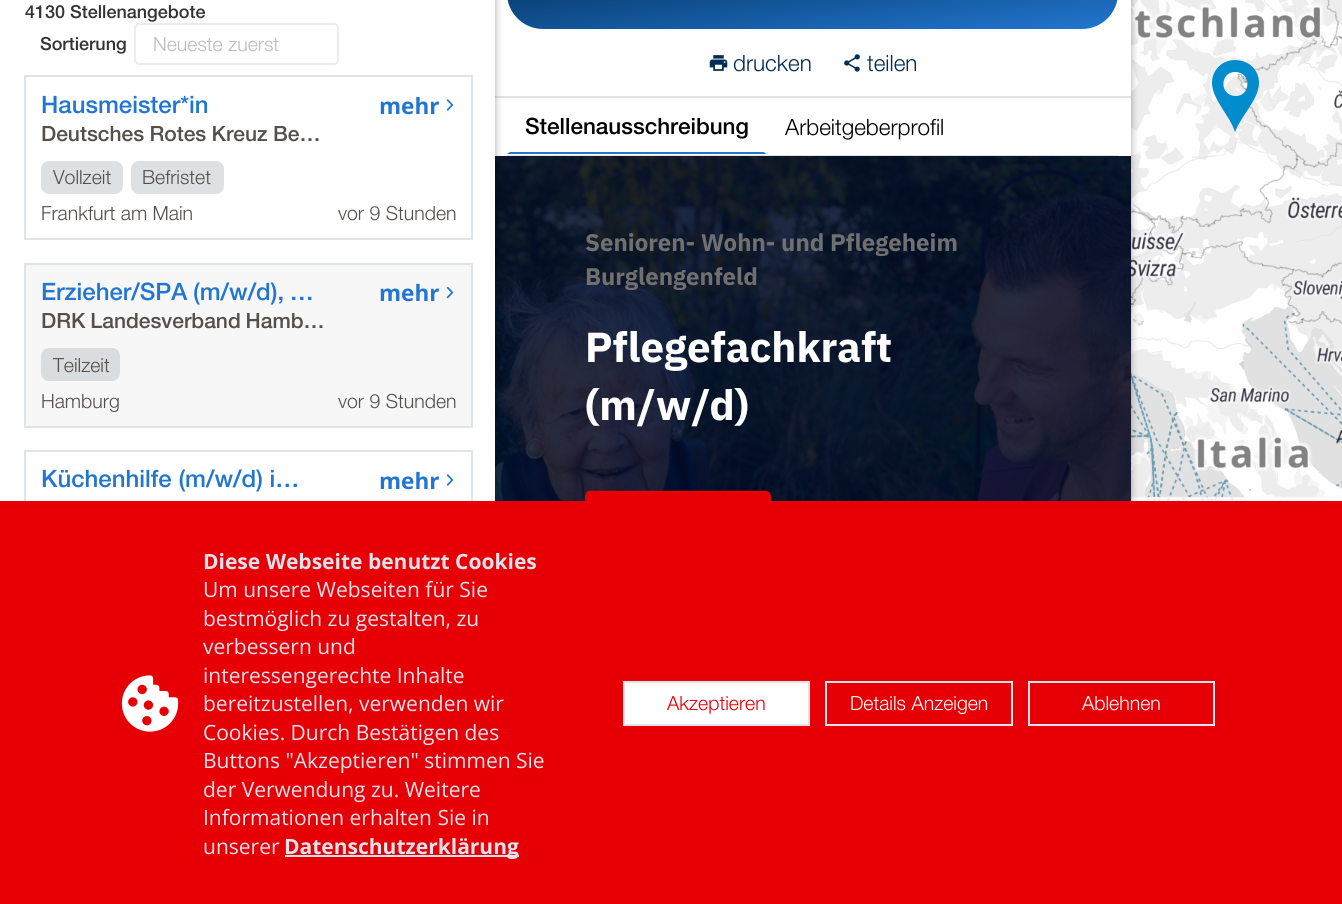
#include <cairo.h>
#include <math.h>
#include <stddef.h>


static void spaced_text(cairo_t *cr, double x, double y, const char *s, double letter, double word) {
    cairo_move_to(cr, x, y);
    while (*s) {
        char ch[5] = {0};
        int n = 0;
        do ch[n++] = *s++; while ((*s & 0xC0) == 0x80);
        cairo_show_text(cr, ch);
        cairo_rel_move_to(cr, letter + word * (*ch == ' '), 0);
    }
}

static void round_rect(cairo_t *cr, double x, double y, double w, double h, double r) {
    cairo_new_sub_path(cr);
    cairo_arc(cr, x + w - r, y + h - r, r, 0, M_PI / 2);
    cairo_arc(cr, x + r, y + h - r, r, M_PI / 2, M_PI);
    cairo_arc(cr, x + r, y + r, r, M_PI, 1.5 * M_PI);
    cairo_arc(cr, x + w - r, y + r, r, 1.5 * M_PI, 2 * M_PI);
    cairo_close_path(cr);
}

static void shadow(cairo_t *cr, double x, double y, double w, double h, double r, double blur, double alpha) {
    cairo_push_group_with_content(cr, CAIRO_CONTENT_ALPHA);
    cairo_set_operator(cr, CAIRO_OPERATOR_SOURCE);
    for (int i = 15; i >= -15 && fmin(w, h) + blur * i / 3 > 0; i -= 2) {
        double e = blur * i / 6;
        cairo_set_source_rgba(cr, 0, 0, 0, alpha * erfc((i - 1) / 8.5) / 2);
        round_rect(cr, x - e, y - e, w + 2 * e, h + 2 * e, fmax(0, fmin(r + e + blur * .6, fmin(w, h) / 2 + e)));
        cairo_fill(cr);
    }
    cairo_pattern_t *soft = cairo_pop_group(cr);
    cairo_mask(cr, soft);
    cairo_pattern_destroy(soft);
}

static void picture(cairo_t *cr, const char *path, double x, double y, double w, double h) {
    cairo_surface_t *image = cairo_image_surface_create_from_png(path);
    cairo_save(cr);
    cairo_set_source_surface(cr, image, x, y);
    cairo_rectangle(cr, x, y, w, h);
    cairo_fill(cr);
    cairo_restore(cr);
    cairo_surface_destroy(image);
}

int main(void) {
    cairo_surface_t *surface = cairo_image_surface_create(CAIRO_FORMAT_RGB24, 1342, 904);
    cairo_t *cr = cairo_create(surface);
    cairo_font_options_t *options = cairo_font_options_create();
    cairo_font_options_set_hint_metrics(options, CAIRO_HINT_METRICS_OFF);
    cairo_font_options_set_hint_style(options, CAIRO_HINT_STYLE_NONE);
    cairo_set_font_options(cr, options);
    cairo_set_miter_limit(cr, 4);
    cairo_pattern_t *gradient;
    cairo_set_source_rgb(cr, 1, 1, 1);
    cairo_paint(cr);
    picture(cr, "img6.png", 1131, 0, 211, 501);
    cairo_set_source_rgba(cr, 1, 1, 1, 0.8);
    cairo_rectangle(cr, 1131, 497, 192, 4);
    cairo_fill(cr);
    cairo_set_source_rgb(cr, 0, 0, 0);
    shadow(cr, 495, -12, 636, 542, 0, 4, 0.35);
    cairo_set_source_rgb(cr, 1, 1, 1);
    cairo_rectangle(cr, 495, 0, 636, 156);
    cairo_fill(cr);
    cairo_set_source_rgb(cr, 0.875, 0.894, 0.918);
    cairo_rectangle(cr, 495, 96, 636, 2);
    cairo_fill(cr);
    gradient = cairo_pattern_create_linear(804, -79, 821, 64);
    cairo_pattern_add_color_stop_rgba(gradient, 0, 0, 0.176, 0.333, 1);
    cairo_pattern_add_color_stop_rgba(gradient, 1, 0.133, 0.463, 0.816, 1);
    cairo_set_source(cr, gradient);
    cairo_pattern_destroy(gradient);
    round_rect(cr, 507, -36, 611, 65, 36);
    cairo_fill(cr);
    cairo_set_source_rgb(cr, 0.875, 0.894, 0.918);
    cairo_rectangle(cr, 507, 155, 611, 1);
    cairo_fill(cr);
    cairo_set_source_rgb(cr, 0.133, 0.463, 0.816);
    cairo_new_path(cr);
    cairo_move_to(cr, 766, 154);
    cairo_line_to(cr, 507, 154);
    cairo_line_to(cr, 510, 152);
    cairo_line_to(cr, 764, 152);
    cairo_close_path(cr);
    cairo_fill(cr);
    picture(cr, "img5.png", 495, 156, 636, 345);
    cairo_set_source_rgb(cr, 0, 0, 0);
    shadow(cr, 0, -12, 495, 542, 0, 4, 0.35);
    cairo_set_source_rgb(cr, 1, 1, 1);
    cairo_rectangle(cr, 0, 0, 495, 501);
    cairo_fill(cr);
    cairo_select_font_face(cr, "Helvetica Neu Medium", CAIRO_FONT_SLANT_NORMAL, CAIRO_FONT_WEIGHT_NORMAL);
    cairo_set_font_size(cr, 18);
    cairo_set_source_rgb(cr, 0.2, 0.2, 0.2);
    cairo_move_to(cr, 25, 18);
    cairo_show_text(cr, "4130 Stellenangebote");
    cairo_move_to(cr, 40, 50);
    cairo_show_text(cr, "Sortierung");
    round_rect(cr, 135, 24, 203, 40, 4);
    cairo_set_source_rgb(cr, 0.914, 0.925, 0.941);
    cairo_stroke(cr);
    cairo_select_font_face(cr, "Helvetica Neu Light", CAIRO_FONT_SLANT_NORMAL, CAIRO_FONT_WEIGHT_NORMAL);
    cairo_set_font_size(cr, 19.5);
    cairo_set_source_rgb(cr, 0.729, 0.737, 0.749);
    cairo_move_to(cr, 153, 51);
    cairo_show_text(cr, "Neueste zuerst");
    cairo_rectangle(cr, 25, 76, 447, 163);
    cairo_set_source_rgb(cr, 0.875, 0.894, 0.918);
    cairo_stroke(cr);
    cairo_select_font_face(cr, "Helvetica Neu Medium", CAIRO_FONT_SLANT_NORMAL, CAIRO_FONT_WEIGHT_NORMAL);
    cairo_set_font_size(cr, 24);
    cairo_set_source_rgb(cr, 0.133, 0.463, 0.816);
    cairo_move_to(cr, 41, 113);
    cairo_show_text(cr, "Hausmeister*in");
    cairo_set_font_size(cr, 21);
    cairo_set_source_rgb(cr, 0.333, 0.31, 0.29);
    spaced_text(cr, 41, 141, "Deutsches Rotes Kreuz Be…", 0, -0.5);
    cairo_set_source_rgb(cr, 0.871, 0.882, 0.89);
    round_rect(cr, 41, 161, 82, 33, 8);
    cairo_fill(cr);
    cairo_select_font_face(cr, "Helvetica Neu Light", CAIRO_FONT_SLANT_NORMAL, CAIRO_FONT_WEIGHT_NORMAL);
    cairo_set_font_size(cr, 19.5);
    cairo_set_source_rgb(cr, 0.333, 0.31, 0.29);
    cairo_move_to(cr, 53, 184);
    cairo_show_text(cr, "Vollzeit");
    cairo_set_source_rgb(cr, 0.871, 0.882, 0.89);
    round_rect(cr, 131, 161, 93, 33, 8);
    cairo_fill(cr);
    cairo_set_source_rgb(cr, 0.333, 0.31, 0.29);
    cairo_move_to(cr, 142, 184);
    cairo_show_text(cr, "Befristet");
    cairo_move_to(cr, 41, 220);
    cairo_show_text(cr, "Frankfurt am Main");
    cairo_select_font_face(cr, "Open Sans", CAIRO_FONT_SLANT_NORMAL, CAIRO_FONT_WEIGHT_BOLD);
    cairo_set_font_size(cr, 22.5);
    cairo_set_source_rgb(cr, 0.133, 0.463, 0.816);
    cairo_move_to(cr, 379, 114);
    cairo_show_text(cr, "mehr");
    picture(cr, "img1.png", 446, 99, 8, 12);
    cairo_select_font_face(cr, "Helvetica Neu Light", CAIRO_FONT_SLANT_NORMAL, CAIRO_FONT_WEIGHT_NORMAL);
    cairo_set_font_size(cr, 19.5);
    cairo_set_source_rgb(cr, 0.333, 0.31, 0.29);
    cairo_move_to(cr, 338, 220);
    cairo_show_text(cr, "vor 9 Stunden");
    cairo_set_source_rgb(cr, 0.965, 0.965, 0.965);
    cairo_rectangle(cr, 25, 264, 447, 163);
    cairo_fill_preserve(cr);
    cairo_set_source_rgb(cr, 0.875, 0.894, 0.918);
    cairo_stroke(cr);
    cairo_select_font_face(cr, "Helvetica Neu Medium", CAIRO_FONT_SLANT_NORMAL, CAIRO_FONT_WEIGHT_NORMAL);
    cairo_set_font_size(cr, 24);
    cairo_set_source_rgb(cr, 0.133, 0.463, 0.816);
    spaced_text(cr, 41, 300, "Erzieher/SPA (m/w/d), …", 0, -1);
    cairo_set_font_size(cr, 21);
    cairo_set_source_rgb(cr, 0.333, 0.31, 0.29);
    spaced_text(cr, 41, 328, "DRK Landesverband Hamb…", 0, -1);
    cairo_set_source_rgb(cr, 0.855, 0.867, 0.875);
    round_rect(cr, 41, 348, 79, 33, 8);
    cairo_fill(cr);
    cairo_select_font_face(cr, "Helvetica Neu Light", CAIRO_FONT_SLANT_NORMAL, CAIRO_FONT_WEIGHT_NORMAL);
    cairo_set_font_size(cr, 19.5);
    cairo_set_source_rgb(cr, 0.333, 0.31, 0.29);
    cairo_move_to(cr, 53, 372);
    cairo_show_text(cr, "Teilzeit");
    cairo_move_to(cr, 41, 408);
    cairo_show_text(cr, "Hamburg");
    cairo_select_font_face(cr, "Open Sans", CAIRO_FONT_SLANT_NORMAL, CAIRO_FONT_WEIGHT_BOLD);
    cairo_set_font_size(cr, 22.5);
    cairo_set_source_rgb(cr, 0.133, 0.463, 0.816);
    cairo_move_to(cr, 379, 301);
    cairo_show_text(cr, "mehr");
    picture(cr, "img2.png", 446, 287, 8, 12);
    cairo_select_font_face(cr, "Helvetica Neu Light", CAIRO_FONT_SLANT_NORMAL, CAIRO_FONT_WEIGHT_NORMAL);
    cairo_set_font_size(cr, 19.5);
    cairo_set_source_rgb(cr, 0.333, 0.31, 0.29);
    cairo_move_to(cr, 338, 408);
    cairo_show_text(cr, "vor 9 Stunden");
    cairo_rectangle(cr, 25, 451, 447, 163);
    cairo_set_source_rgb(cr, 0.875, 0.894, 0.918);
    cairo_stroke(cr);
    cairo_select_font_face(cr, "Helvetica Neu Medium", CAIRO_FONT_SLANT_NORMAL, CAIRO_FONT_WEIGHT_NORMAL);
    cairo_set_font_size(cr, 24);
    cairo_set_source_rgb(cr, 0.133, 0.463, 0.816);
    cairo_move_to(cr, 41, 487);
    cairo_show_text(cr, "Küchenhilfe (m/w/d) i…");
    cairo_select_font_face(cr, "Open Sans", CAIRO_FONT_SLANT_NORMAL, CAIRO_FONT_WEIGHT_BOLD);
    cairo_set_font_size(cr, 22.5);
    cairo_move_to(cr, 379, 489);
    cairo_show_text(cr, "mehr");
    picture(cr, "img1.png", 446, 474, 8, 12);
    picture(cr, "img3.png", 709, 55, 19, 16);
    cairo_select_font_face(cr, "Helvetica Neu Light", CAIRO_FONT_SLANT_NORMAL, CAIRO_FONT_WEIGHT_NORMAL);
    cairo_set_source_rgb(cr, 0, 0.176, 0.333);
    cairo_move_to(cr, 733, 71);
    cairo_show_text(cr, "drucken");
    picture(cr, "img4.png", 844, 54, 16, 18);
    cairo_move_to(cr, 867, 71);
    cairo_show_text(cr, "teilen");
    cairo_select_font_face(cr, "Helvetica Neu Medium", CAIRO_FONT_SLANT_NORMAL, CAIRO_FONT_WEIGHT_NORMAL);
    cairo_set_source_rgb(cr, 0, 0, 0);
    cairo_move_to(cr, 525, 134);
    cairo_show_text(cr, "Stellenausschreibung");
    cairo_select_font_face(cr, "Helvetica Neu Light", CAIRO_FONT_SLANT_NORMAL, CAIRO_FONT_WEIGHT_NORMAL);
    cairo_move_to(cr, 785, 135);
    cairo_show_text(cr, "Arbeitgeberprofil");
    cairo_set_source_rgb(cr, 0, 0.549, 0.804);
    cairo_new_path(cr);
    cairo_move_to(cr, 1235, 60);
    cairo_curve_to(cr, 1222, 60, 1212, 70, 1212, 83);
    cairo_curve_to(cr, 1212, 99, 1230, 116, 1235, 132);
    cairo_curve_to(cr, 1241, 116, 1259, 99, 1259, 83);
    cairo_curve_to(cr, 1259, 70, 1249, 60, 1235, 60);
    cairo_close_path(cr);
    cairo_move_to(cr, 1235, 72);
    cairo_curve_to(cr, 1252, 72, 1251, 97, 1235, 96);
    cairo_curve_to(cr, 1219, 95, 1220, 72, 1235, 72);
    cairo_close_path(cr);
    cairo_fill(cr);
    cairo_set_source_rgb(cr, 0.902, 0, 0.02);
    cairo_rectangle(cr, 0, 501, 1342, 403);
    cairo_fill(cr);
    picture(cr, "img7.png", 121, 675, 58, 57);
    cairo_select_font_face(cr, "Open Sans", CAIRO_FONT_SLANT_NORMAL, CAIRO_FONT_WEIGHT_BOLD);
    cairo_set_font_size(cr, 21);
    cairo_set_source_rgb(cr, 0.875, 0.894, 0.918);
    cairo_move_to(cr, 203, 569);
    cairo_show_text(cr, "Diese Webseite benutzt Cookies");
    cairo_select_font_face(cr, "Open Sans", CAIRO_FONT_SLANT_NORMAL, CAIRO_FONT_WEIGHT_NORMAL);
    cairo_move_to(cr, 203, 597);
    cairo_show_text(cr, "Um unsere Webseiten für Sie");
    cairo_move_to(cr, 203, 626);
    cairo_show_text(cr, "bestmöglich zu gestalten, zu");
    cairo_move_to(cr, 203, 654);
    cairo_show_text(cr, "verbessern und");
    cairo_move_to(cr, 203, 683);
    cairo_show_text(cr, "interessengerechte Inhalte");
    cairo_move_to(cr, 203, 711);
    cairo_show_text(cr, "bereitzustellen, verwenden wir");
    cairo_move_to(cr, 203, 740);
    cairo_show_text(cr, "Cookies. Durch Bestätigen des");
    cairo_move_to(cr, 203, 768);
    cairo_show_text(cr, "Buttons \"Akzeptieren\" stimmen Sie");
    cairo_move_to(cr, 203, 797);
    cairo_show_text(cr, "der Verwendung zu. Weitere");
    cairo_move_to(cr, 203, 825);
    cairo_show_text(cr, "Informationen erhalten Sie in");
    cairo_move_to(cr, 203, 854);
    cairo_show_text(cr, "unserer");
    cairo_rectangle(cr, 285, 855, 234, 2);
    cairo_fill(cr);
    cairo_select_font_face(cr, "Open Sans", CAIRO_FONT_SLANT_NORMAL, CAIRO_FONT_WEIGHT_BOLD);
    cairo_move_to(cr, 284, 854);
    cairo_show_text(cr, "Datenschutzerklärung");
    cairo_set_source_rgb(cr, 1, 1, 1);
    cairo_rectangle(cr, 624, 682, 185, 43);
    cairo_fill_preserve(cr);
    cairo_set_source_rgb(cr, 0.875, 0.894, 0.918);
    cairo_stroke(cr);
    cairo_select_font_face(cr, "Helvetica Neu Light", CAIRO_FONT_SLANT_NORMAL, CAIRO_FONT_WEIGHT_NORMAL);
    cairo_set_font_size(cr, 19.5);
    cairo_set_source_rgb(cr, 0.902, 0, 0.02);
    cairo_move_to(cr, 667, 710);
    cairo_show_text(cr, "Akzeptieren");
    cairo_rectangle(cr, 826, 682, 186, 43);
    cairo_set_source_rgb(cr, 0.875, 0.894, 0.918);
    cairo_stroke(cr);
    cairo_set_source_rgb(cr, 1, 1, 1);
    cairo_move_to(cr, 850, 710);
    cairo_show_text(cr, "Details Anzeigen");
    cairo_rectangle(cr, 1029, 682, 185, 43);
    cairo_set_source_rgb(cr, 0.875, 0.894, 0.918);
    cairo_stroke(cr);
    cairo_set_source_rgb(cr, 1, 1, 1);
    cairo_move_to(cr, 1082, 710);
    cairo_show_text(cr, "Ablehnen");
    cairo_surface_write_to_png(surface, "page.png");
    cairo_font_options_destroy(options);
    cairo_destroy(cr);
    cairo_surface_destroy(surface);
    return 0;
}
